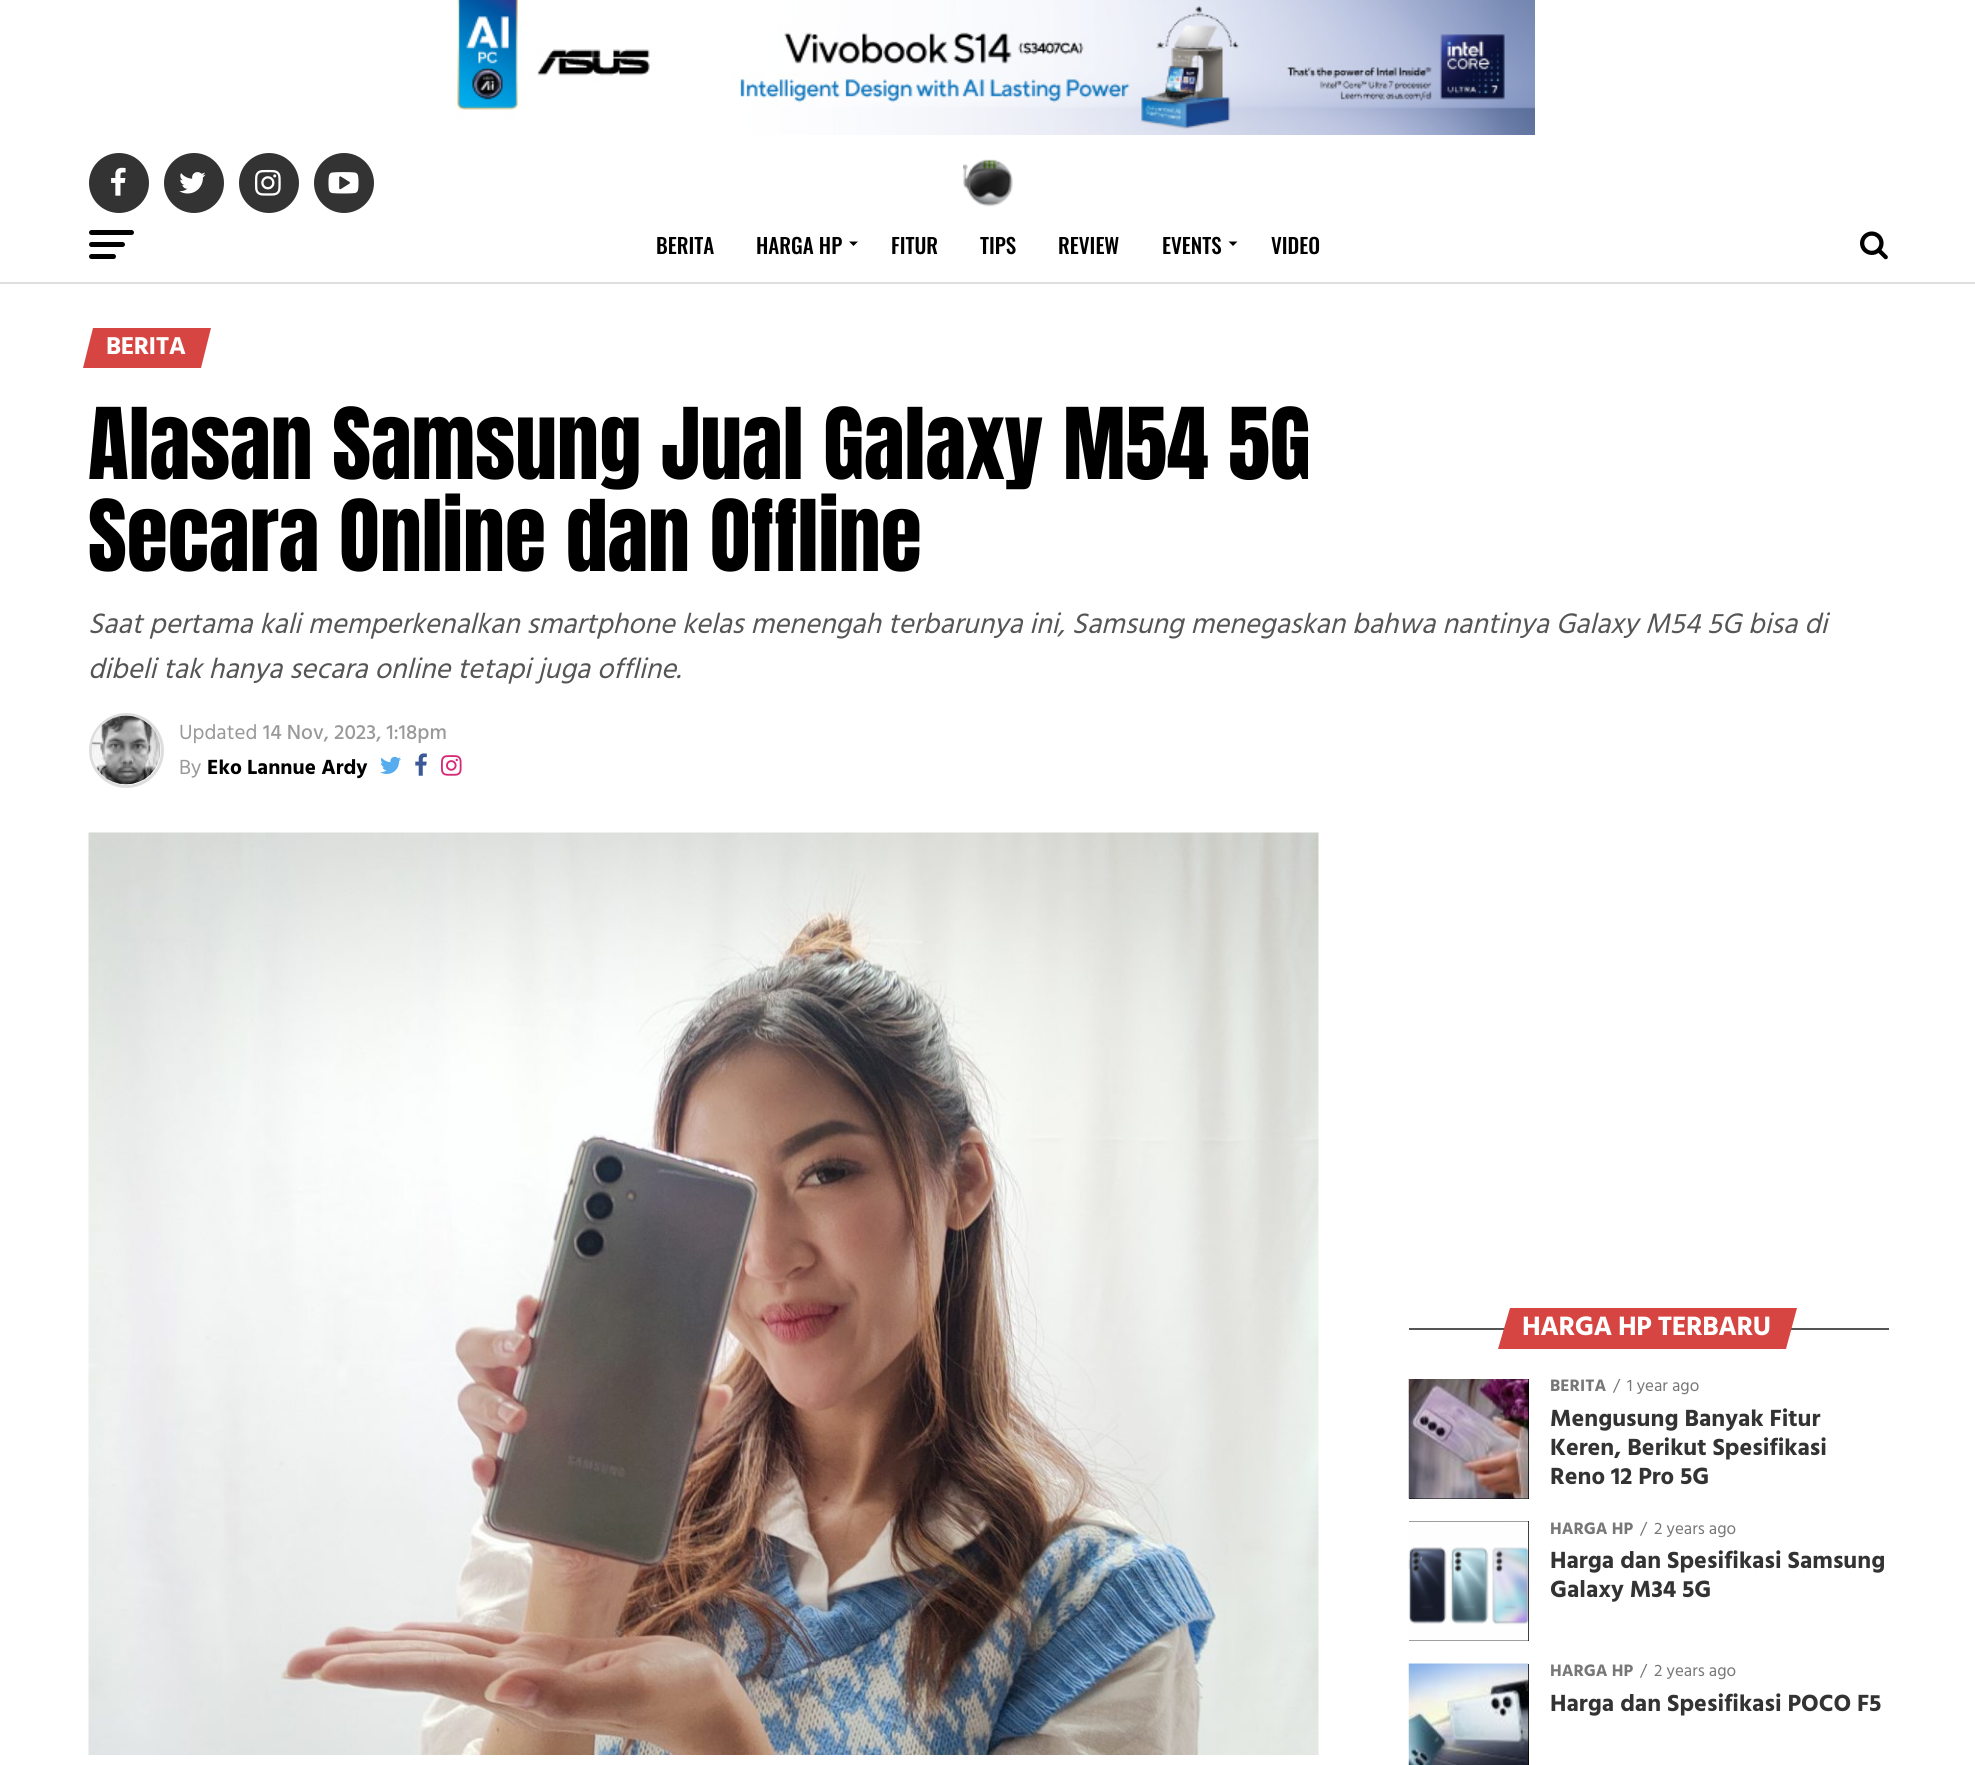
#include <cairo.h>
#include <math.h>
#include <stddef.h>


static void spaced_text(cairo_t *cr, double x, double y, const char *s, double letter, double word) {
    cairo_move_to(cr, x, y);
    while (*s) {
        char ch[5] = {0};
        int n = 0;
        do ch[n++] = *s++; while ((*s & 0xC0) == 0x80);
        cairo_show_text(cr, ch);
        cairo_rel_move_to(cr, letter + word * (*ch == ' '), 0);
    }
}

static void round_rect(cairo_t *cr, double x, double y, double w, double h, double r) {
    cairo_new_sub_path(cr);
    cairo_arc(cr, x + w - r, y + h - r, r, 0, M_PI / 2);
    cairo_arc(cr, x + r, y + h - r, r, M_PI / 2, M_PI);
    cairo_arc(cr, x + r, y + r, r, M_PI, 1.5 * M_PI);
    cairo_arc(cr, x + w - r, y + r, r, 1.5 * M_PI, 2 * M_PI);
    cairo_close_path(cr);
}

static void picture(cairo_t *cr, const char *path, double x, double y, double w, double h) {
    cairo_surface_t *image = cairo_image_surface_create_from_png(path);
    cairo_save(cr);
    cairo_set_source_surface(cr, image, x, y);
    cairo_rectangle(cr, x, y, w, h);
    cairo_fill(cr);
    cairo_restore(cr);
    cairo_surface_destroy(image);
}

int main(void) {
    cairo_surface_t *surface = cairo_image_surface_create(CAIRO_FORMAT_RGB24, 1975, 1765);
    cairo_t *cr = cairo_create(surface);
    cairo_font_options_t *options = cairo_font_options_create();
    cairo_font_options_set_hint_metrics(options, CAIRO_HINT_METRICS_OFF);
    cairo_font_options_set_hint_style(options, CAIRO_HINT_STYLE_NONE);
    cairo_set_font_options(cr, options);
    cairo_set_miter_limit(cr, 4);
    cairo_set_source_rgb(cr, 1, 1, 1);
    cairo_paint(cr);
    picture(cr, "img1.png", 457, 0, 1078, 135);
    cairo_set_source_rgb(cr, 0.871, 0.871, 0.871);
    cairo_rectangle(cr, 0, 282, 1975, 2);
    cairo_fill(cr);
    cairo_set_source_rgb(cr, 0.2, 0.2, 0.2);
    cairo_arc(cr, 119, 183, 30, 0, 2 * M_PI);
    cairo_fill(cr);
    picture(cr, "img2.png", 111, 167, 15, 29);
    cairo_arc(cr, 194, 183, 30, 0, 2 * M_PI);
    cairo_fill(cr);
    picture(cr, "img3.png", 179, 172, 27, 22);
    cairo_arc(cr, 269, 183, 30, 0, 2 * M_PI);
    cairo_fill(cr);
    picture(cr, "img4.png", 255, 169, 26, 27);
    cairo_arc(cr, 344, 183, 30, 0, 2 * M_PI);
    cairo_fill(cr);
    picture(cr, "img5.png", 328, 172, 31, 22);
    picture(cr, "img6.png", 963, 159, 50, 48);
    cairo_set_source_rgb(cr, 0, 0, 0);
    round_rect(cr, 89, 230, 45, 5, 2.5);
    cairo_fill(cr);
    round_rect(cr, 89, 242, 36, 5, 2.5);
    cairo_fill(cr);
    round_rect(cr, 89, 254, 27, 5, 2.5);
    cairo_fill(cr);
    cairo_select_font_face(cr, "Oswald Medium", CAIRO_FONT_SLANT_NORMAL, CAIRO_FONT_WEIGHT_NORMAL);
    cairo_set_font_size(cr, 21);
    cairo_move_to(cr, 656, 254);
    cairo_show_text(cr, "BERITA");
    cairo_move_to(cr, 756, 254);
    cairo_show_text(cr, "HARGA HP");
    cairo_new_path(cr);
    cairo_move_to(cr, 849, 241.5);
    cairo_line_to(cr, 858, 241.5);
    cairo_line_to(cr, 853.5, 246);
    cairo_close_path(cr);
    cairo_fill(cr);
    cairo_move_to(cr, 891, 254);
    cairo_show_text(cr, "FITUR");
    cairo_move_to(cr, 980, 254);
    cairo_show_text(cr, "TIPS");
    cairo_move_to(cr, 1058, 254);
    cairo_show_text(cr, "REVIEW");
    cairo_move_to(cr, 1162, 254);
    cairo_show_text(cr, "EVENTS");
    cairo_new_path(cr);
    cairo_move_to(cr, 1228.5, 241.5);
    cairo_line_to(cr, 1237.5, 241.5);
    cairo_line_to(cr, 1233, 246);
    cairo_close_path(cr);
    cairo_fill(cr);
    cairo_move_to(cr, 1271, 254);
    cairo_show_text(cr, "VIDEO");
    picture(cr, "img7.png", 1860, 231, 28, 29);
    cairo_set_source_rgb(cr, 0.839, 0.271, 0.255);
    cairo_new_path(cr);
    cairo_move_to(cr, 93, 328);
    cairo_line_to(cr, 211, 328);
    cairo_line_to(cr, 201, 368);
    cairo_line_to(cr, 83, 368);
    cairo_close_path(cr);
    cairo_fill(cr);
    cairo_select_font_face(cr, "Hind", CAIRO_FONT_SLANT_NORMAL, CAIRO_FONT_WEIGHT_BOLD);
    cairo_set_font_size(cr, 25);
    cairo_set_source_rgb(cr, 1, 1, 1);
    spaced_text(cr, 106, 354, "BERITA", -0.5, 0);
    cairo_select_font_face(cr, "Anton", CAIRO_FONT_SLANT_NORMAL, CAIRO_FONT_WEIGHT_NORMAL);
    cairo_set_font_size(cr, 84);
    cairo_set_source_rgb(cr, 0, 0, 0);
    cairo_move_to(cr, 88, 479);
    cairo_show_text(cr, "Alasan Samsung Jual Galaxy M54 5G");
    cairo_move_to(cr, 88, 571);
    cairo_show_text(cr, "Secara Online dan Offline");
    cairo_select_font_face(cr, "Hind", CAIRO_FONT_SLANT_ITALIC, CAIRO_FONT_WEIGHT_NORMAL);
    cairo_set_font_size(cr, 28.8);
    cairo_set_source_rgb(cr, 0.333, 0.333, 0.333);
    cairo_move_to(cr, 88, 633);
    cairo_show_text(cr, "Saat pertama kali memperkenalkan smartphone kelas menengah terbarunya ini, Samsung menegaskan bahwa nantinya Galaxy M54 5G bisa di");
    cairo_move_to(cr, 88, 678);
    cairo_show_text(cr, "dibeli tak hanya secara online tetapi juga offline.");
    cairo_new_path(cr);
    cairo_arc(cr, 126.5, 750.5, 36, 0, 2 * M_PI);
    cairo_set_source_rgb(cr, 0.867, 0.867, 0.867);
    cairo_set_line_width(cr, 3);
    cairo_stroke(cr);
    picture(cr, "img8.png", 91, 715, 70, 70);
    cairo_select_font_face(cr, "Hind", CAIRO_FONT_SLANT_NORMAL, CAIRO_FONT_WEIGHT_NORMAL);
    cairo_set_font_size(cr, 21);
    cairo_set_source_rgb(cr, 0.6, 0.6, 0.6);
    cairo_move_to(cr, 179, 739);
    cairo_show_text(cr, "Updated");
    cairo_select_font_face(cr, "Hind Medium", CAIRO_FONT_SLANT_NORMAL, CAIRO_FONT_WEIGHT_NORMAL);
    cairo_move_to(cr, 263, 739);
    cairo_show_text(cr, "14 Nov, 2023, 1:18pm");
    cairo_select_font_face(cr, "Hind", CAIRO_FONT_SLANT_NORMAL, CAIRO_FONT_WEIGHT_NORMAL);
    cairo_move_to(cr, 179, 774);
    cairo_show_text(cr, "By");
    cairo_select_font_face(cr, "Hind", CAIRO_FONT_SLANT_NORMAL, CAIRO_FONT_WEIGHT_BOLD);
    cairo_set_source_rgb(cr, 0, 0, 0);
    cairo_move_to(cr, 207, 774);
    cairo_show_text(cr, "Eko Lannue Ardy");
    picture(cr, "img9.png", 380, 756, 21, 18);
    picture(cr, "img10.png", 415, 753, 12, 23);
    picture(cr, "img11.png", 441, 755, 21, 21);
    picture(cr, "img12.png", 88, 832, 1231, 923);
    cairo_set_source_rgb(cr, 0.333, 0.333, 0.333);
    cairo_rectangle(cr, 1409, 1328, 480, 2);
    cairo_fill(cr);
    cairo_set_source_rgb(cr, 0.839, 0.271, 0.255);
    cairo_new_path(cr);
    cairo_move_to(cr, 1510, 1308);
    cairo_line_to(cr, 1797, 1308);
    cairo_line_to(cr, 1786, 1349);
    cairo_line_to(cr, 1498, 1349);
    cairo_close_path(cr);
    cairo_fill(cr);
    cairo_set_font_size(cr, 27.25);
    cairo_set_source_rgb(cr, 1, 1, 1);
    spaced_text(cr, 1522, 1335, "HARGA HP TERBARU", -0.5, 0);
    cairo_set_source_rgb(cr, 0, 0, 0);
    cairo_rectangle(cr, 1409, 1379, 120, 120);
    cairo_fill(cr);
    picture(cr, "img13.png", 1408, 1379, 121, 120);
    cairo_set_font_size(cr, 17);
    cairo_set_source_rgb(cr, 0.467, 0.467, 0.467);
    cairo_move_to(cr, 1550, 1391);
    cairo_show_text(cr, "BERITA");
    cairo_select_font_face(cr, "Hind", CAIRO_FONT_SLANT_NORMAL, CAIRO_FONT_WEIGHT_NORMAL);
    cairo_move_to(cr, 1613, 1391);
    cairo_show_text(cr, "/");
    cairo_move_to(cr, 1627, 1391);
    cairo_show_text(cr, "1 year ago");
    cairo_select_font_face(cr, "Hind", CAIRO_FONT_SLANT_NORMAL, CAIRO_FONT_WEIGHT_BOLD);
    cairo_set_font_size(cr, 24);
    cairo_set_source_rgb(cr, 0.2, 0.2, 0.2);
    cairo_move_to(cr, 1550, 1426);
    cairo_show_text(cr, "Mengusung Banyak Fitur");
    cairo_move_to(cr, 1550, 1455);
    cairo_show_text(cr, "Keren, Berikut Spesifikasi");
    cairo_move_to(cr, 1550, 1484);
    cairo_show_text(cr, "Reno 12 Pro 5G");
    cairo_set_source_rgb(cr, 0, 0, 0);
    cairo_rectangle(cr, 1409, 1521, 120, 120);
    cairo_fill(cr);
    picture(cr, "img14.png", 1408, 1521, 121, 120);
    cairo_set_font_size(cr, 17);
    cairo_set_source_rgb(cr, 0.467, 0.467, 0.467);
    cairo_move_to(cr, 1550, 1534);
    cairo_show_text(cr, "HARGA HP");
    cairo_select_font_face(cr, "Hind", CAIRO_FONT_SLANT_NORMAL, CAIRO_FONT_WEIGHT_NORMAL);
    cairo_move_to(cr, 1640, 1534);
    cairo_show_text(cr, "/");
    cairo_move_to(cr, 1654, 1534);
    cairo_show_text(cr, "2 years ago");
    cairo_select_font_face(cr, "Hind", CAIRO_FONT_SLANT_NORMAL, CAIRO_FONT_WEIGHT_BOLD);
    cairo_set_font_size(cr, 24);
    cairo_set_source_rgb(cr, 0.2, 0.2, 0.2);
    cairo_move_to(cr, 1550, 1568);
    cairo_show_text(cr, "Harga dan Spesifikasi Samsung");
    cairo_move_to(cr, 1550, 1597);
    cairo_show_text(cr, "Galaxy M34 5G");
    cairo_set_source_rgb(cr, 0, 0, 0);
    cairo_rectangle(cr, 1528, 1664, 1, 101);
    cairo_fill(cr);
    picture(cr, "img15.png", 1408, 1663, 121, 102);
    cairo_set_font_size(cr, 17);
    cairo_set_source_rgb(cr, 0.467, 0.467, 0.467);
    cairo_move_to(cr, 1550, 1676);
    cairo_show_text(cr, "HARGA HP");
    cairo_select_font_face(cr, "Hind", CAIRO_FONT_SLANT_NORMAL, CAIRO_FONT_WEIGHT_NORMAL);
    cairo_move_to(cr, 1640, 1676);
    cairo_show_text(cr, "/");
    cairo_move_to(cr, 1654, 1676);
    cairo_show_text(cr, "2 years ago");
    cairo_select_font_face(cr, "Hind", CAIRO_FONT_SLANT_NORMAL, CAIRO_FONT_WEIGHT_BOLD);
    cairo_set_font_size(cr, 24);
    cairo_set_source_rgb(cr, 0.2, 0.2, 0.2);
    cairo_move_to(cr, 1550, 1711);
    cairo_show_text(cr, "Harga dan Spesifikasi POCO F5");
    cairo_surface_write_to_png(surface, "page.png");
    cairo_font_options_destroy(options);
    cairo_destroy(cr);
    cairo_surface_destroy(surface);
    return 0;
}
